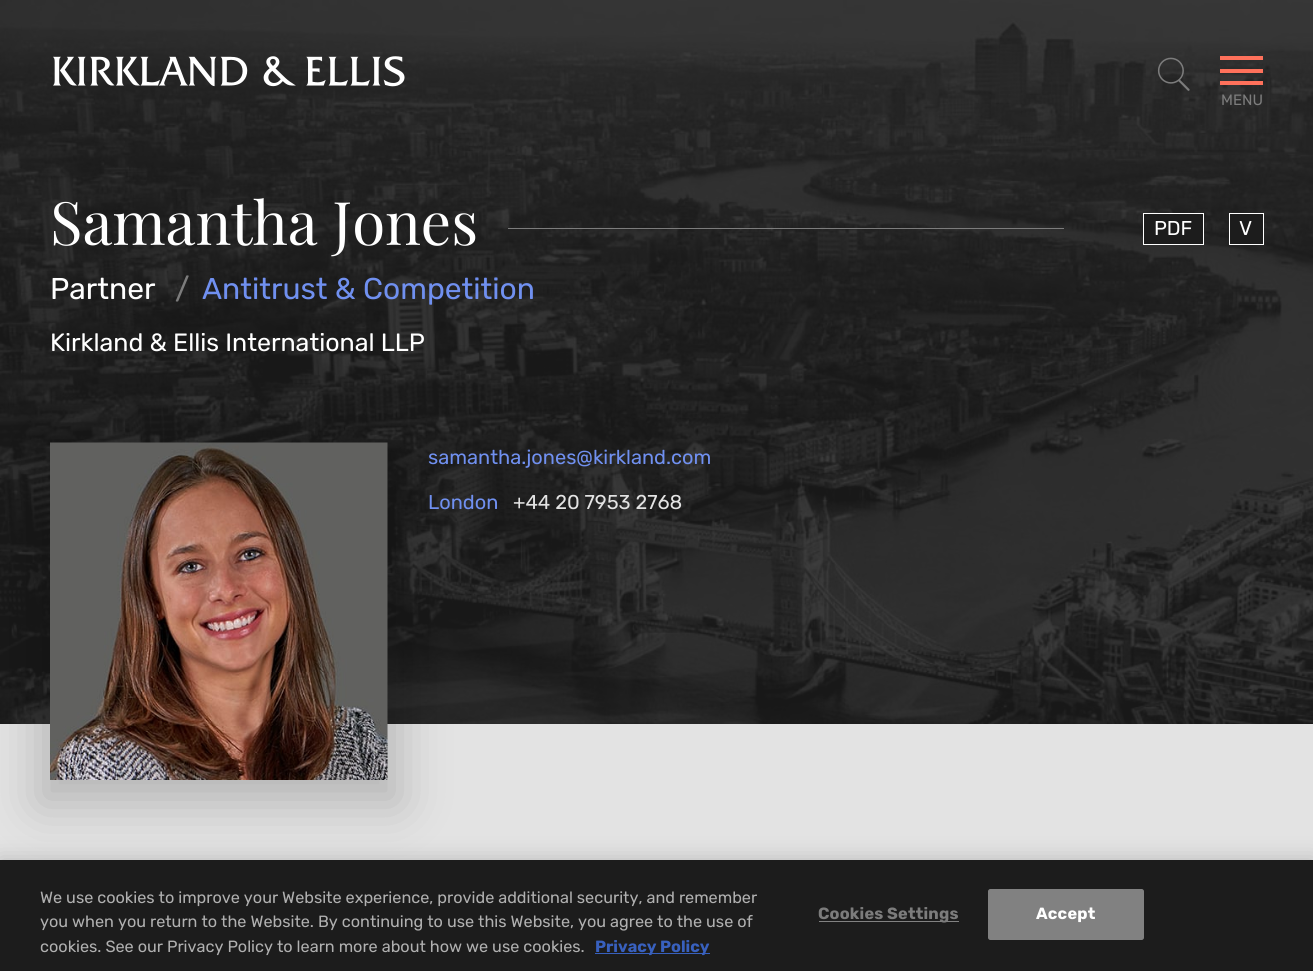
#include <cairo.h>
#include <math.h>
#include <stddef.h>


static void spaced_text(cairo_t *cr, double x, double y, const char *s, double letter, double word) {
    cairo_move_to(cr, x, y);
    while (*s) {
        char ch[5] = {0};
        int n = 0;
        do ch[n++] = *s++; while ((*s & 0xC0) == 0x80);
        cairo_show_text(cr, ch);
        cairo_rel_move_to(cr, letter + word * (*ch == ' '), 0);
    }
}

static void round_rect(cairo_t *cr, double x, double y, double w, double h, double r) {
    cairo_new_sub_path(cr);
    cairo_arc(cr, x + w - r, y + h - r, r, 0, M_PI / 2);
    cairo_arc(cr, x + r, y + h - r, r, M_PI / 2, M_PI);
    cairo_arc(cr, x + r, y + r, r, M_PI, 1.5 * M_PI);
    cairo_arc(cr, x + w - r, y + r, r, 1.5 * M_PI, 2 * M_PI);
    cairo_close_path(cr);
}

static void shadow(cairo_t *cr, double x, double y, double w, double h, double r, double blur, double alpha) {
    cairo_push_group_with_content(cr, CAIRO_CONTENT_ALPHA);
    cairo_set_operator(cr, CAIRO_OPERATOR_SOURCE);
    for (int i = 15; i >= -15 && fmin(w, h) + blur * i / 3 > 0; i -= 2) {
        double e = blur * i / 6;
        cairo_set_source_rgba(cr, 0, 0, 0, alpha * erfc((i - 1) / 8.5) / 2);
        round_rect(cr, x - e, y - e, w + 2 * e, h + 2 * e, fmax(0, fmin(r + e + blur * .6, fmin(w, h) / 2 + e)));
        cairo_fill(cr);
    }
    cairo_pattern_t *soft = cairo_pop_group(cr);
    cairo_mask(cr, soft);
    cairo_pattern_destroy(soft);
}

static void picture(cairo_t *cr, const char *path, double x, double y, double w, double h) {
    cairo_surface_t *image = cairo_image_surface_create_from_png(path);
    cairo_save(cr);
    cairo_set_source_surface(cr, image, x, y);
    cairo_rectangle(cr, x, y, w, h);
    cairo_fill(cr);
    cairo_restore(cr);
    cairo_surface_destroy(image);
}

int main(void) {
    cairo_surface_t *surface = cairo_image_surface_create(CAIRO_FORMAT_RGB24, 1313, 971);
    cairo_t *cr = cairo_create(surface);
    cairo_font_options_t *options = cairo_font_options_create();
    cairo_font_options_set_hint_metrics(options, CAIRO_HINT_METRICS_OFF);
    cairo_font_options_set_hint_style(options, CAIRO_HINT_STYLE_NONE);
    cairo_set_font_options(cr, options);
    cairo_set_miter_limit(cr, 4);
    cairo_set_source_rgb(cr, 0.89, 0.89, 0.89);
    cairo_paint(cr);
    cairo_set_source_rgb(cr, 0.11, 0.11, 0.11);
    cairo_rectangle(cr, 0, 0, 1313, 724);
    cairo_fill(cr);
    picture(cr, "img3.png", 0, 0, 1313, 724);
    picture(cr, "img1.png", 53, 56, 352, 31);
    picture(cr, "img2.png", 1157, 57, 33, 34);
    cairo_set_source_rgb(cr, 1, 0.443, 0.357);
    cairo_rectangle(cr, 1220, 69, 43, 4);
    cairo_fill(cr);
    cairo_rectangle(cr, 1220, 56, 43, 4);
    cairo_fill(cr);
    cairo_rectangle(cr, 1220, 81, 43, 4);
    cairo_fill(cr);
    cairo_select_font_face(cr, "Rubik", CAIRO_FONT_SLANT_NORMAL, CAIRO_FONT_WEIGHT_NORMAL);
    cairo_set_font_size(cr, 15);
    cairo_set_source_rgb(cr, 0.486, 0.486, 0.486);
    cairo_move_to(cr, 1221, 105);
    cairo_show_text(cr, "MENU");
    cairo_select_font_face(cr, "Playfair Display", CAIRO_FONT_SLANT_NORMAL, CAIRO_FONT_WEIGHT_NORMAL);
    cairo_set_font_size(cr, 60);
    cairo_set_source_rgb(cr, 1, 1, 1);
    cairo_move_to(cr, 50, 245);
    cairo_show_text(cr, "Samantha Jones");
    cairo_set_source_rgb(cr, 0.486, 0.486, 0.486);
    cairo_rectangle(cr, 508, 228, 556, 1);
    cairo_fill(cr);
    cairo_select_font_face(cr, "Rubik", CAIRO_FONT_SLANT_NORMAL, CAIRO_FONT_WEIGHT_NORMAL);
    cairo_set_font_size(cr, 30);
    cairo_set_source_rgb(cr, 1, 1, 1);
    cairo_move_to(cr, 50, 299);
    cairo_show_text(cr, "Partner");
    cairo_set_source_rgb(cr, 0.486, 0.486, 0.486);
    cairo_move_to(cr, 175, 299);
    cairo_show_text(cr, "/");
    cairo_set_source_rgb(cr, 0.439, 0.565, 0.941);
    cairo_move_to(cr, 202, 299);
    cairo_show_text(cr, "Antitrust & Competition");
    cairo_set_font_size(cr, 25);
    cairo_set_source_rgb(cr, 1, 1, 1);
    cairo_move_to(cr, 50, 351);
    cairo_show_text(cr, "Kirkland & Ellis International LLP");
    cairo_set_source_rgb(cr, 0.11, 0.11, 0.11);
    cairo_rectangle(cr, 1143.5, 213.5, 60, 31);
    cairo_fill_preserve(cr);
    cairo_set_source_rgb(cr, 1, 1, 1);
    cairo_set_line_width(cr, 1);
    cairo_stroke(cr);
    cairo_set_font_size(cr, 20);
    cairo_move_to(cr, 1154, 235);
    cairo_show_text(cr, "PDF");
    cairo_set_source_rgb(cr, 0.11, 0.11, 0.11);
    cairo_rectangle(cr, 1229.5, 213.5, 34, 31);
    cairo_fill_preserve(cr);
    cairo_set_source_rgb(cr, 1, 1, 1);
    cairo_stroke(cr);
    cairo_move_to(cr, 1239, 235);
    cairo_show_text(cr, "V");
    cairo_set_source_rgb(cr, 0, 0, 0);
    shadow(cr, 38, 443, 362, 362, 0, 25, 0.2);
    picture(cr, "img4.png", 50, 442, 338, 338);
    cairo_set_source_rgb(cr, 0.439, 0.565, 0.941);
    cairo_move_to(cr, 428, 464);
    cairo_show_text(cr, "samantha.jones@kirkland.com");
    cairo_move_to(cr, 428, 509);
    cairo_show_text(cr, "London");
    cairo_set_source_rgb(cr, 0.89, 0.89, 0.89);
    cairo_move_to(cr, 513, 509);
    cairo_show_text(cr, "+44 20 7953 2768");
    cairo_set_source_rgb(cr, 0, 0, 0);
    shadow(cr, 0, 860, 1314, 111, 0, 11, 0.2);
    cairo_set_source_rgb(cr, 0.11, 0.11, 0.11);
    cairo_rectangle(cr, 0, 860, 1313, 111);
    cairo_fill(cr);
    cairo_set_font_size(cr, 16.25);
    cairo_set_source_rgb(cr, 0.69, 0.69, 0.69);
    cairo_move_to(cr, 40, 903);
    cairo_show_text(cr, "We use cookies to improve your Website experience, provide additional security, and remember");
    cairo_move_to(cr, 40, 927);
    cairo_show_text(cr, "you when you return to the Website. By continuing to use this Website, you agree to the use of");
    cairo_move_to(cr, 40, 952);
    cairo_show_text(cr, "cookies. See our Privacy Policy to learn more about how we use cookies.");
    cairo_set_source_rgb(cr, 0.22, 0.376, 0.745);
    cairo_rectangle(cr, 595, 953, 115, 1);
    cairo_fill(cr);
    cairo_select_font_face(cr, "Rubik", CAIRO_FONT_SLANT_NORMAL, CAIRO_FONT_WEIGHT_BOLD);
    cairo_move_to(cr, 595, 952);
    cairo_show_text(cr, "Privacy Policy");
    cairo_set_source_rgb(cr, 0.506, 0.506, 0.506);
    cairo_rectangle(cr, 819, 921, 140, 1);
    cairo_fill(cr);
    cairo_set_source_rgb(cr, 0.486, 0.486, 0.486);
    spaced_text(cr, 818, 919, "Cookies Settings", 0.2, 0);
    cairo_set_source_rgb(cr, 0.506, 0.506, 0.506);
    round_rect(cr, 988.5, 889.5, 155, 50, 2);
    cairo_fill_preserve(cr);
    cairo_stroke(cr);
    cairo_set_source_rgb(cr, 1, 1, 1);
    spaced_text(cr, 1036, 919, "Accept", 0.2, 0);
    cairo_surface_write_to_png(surface, "page.png");
    cairo_font_options_destroy(options);
    cairo_destroy(cr);
    cairo_surface_destroy(surface);
    return 0;
}
